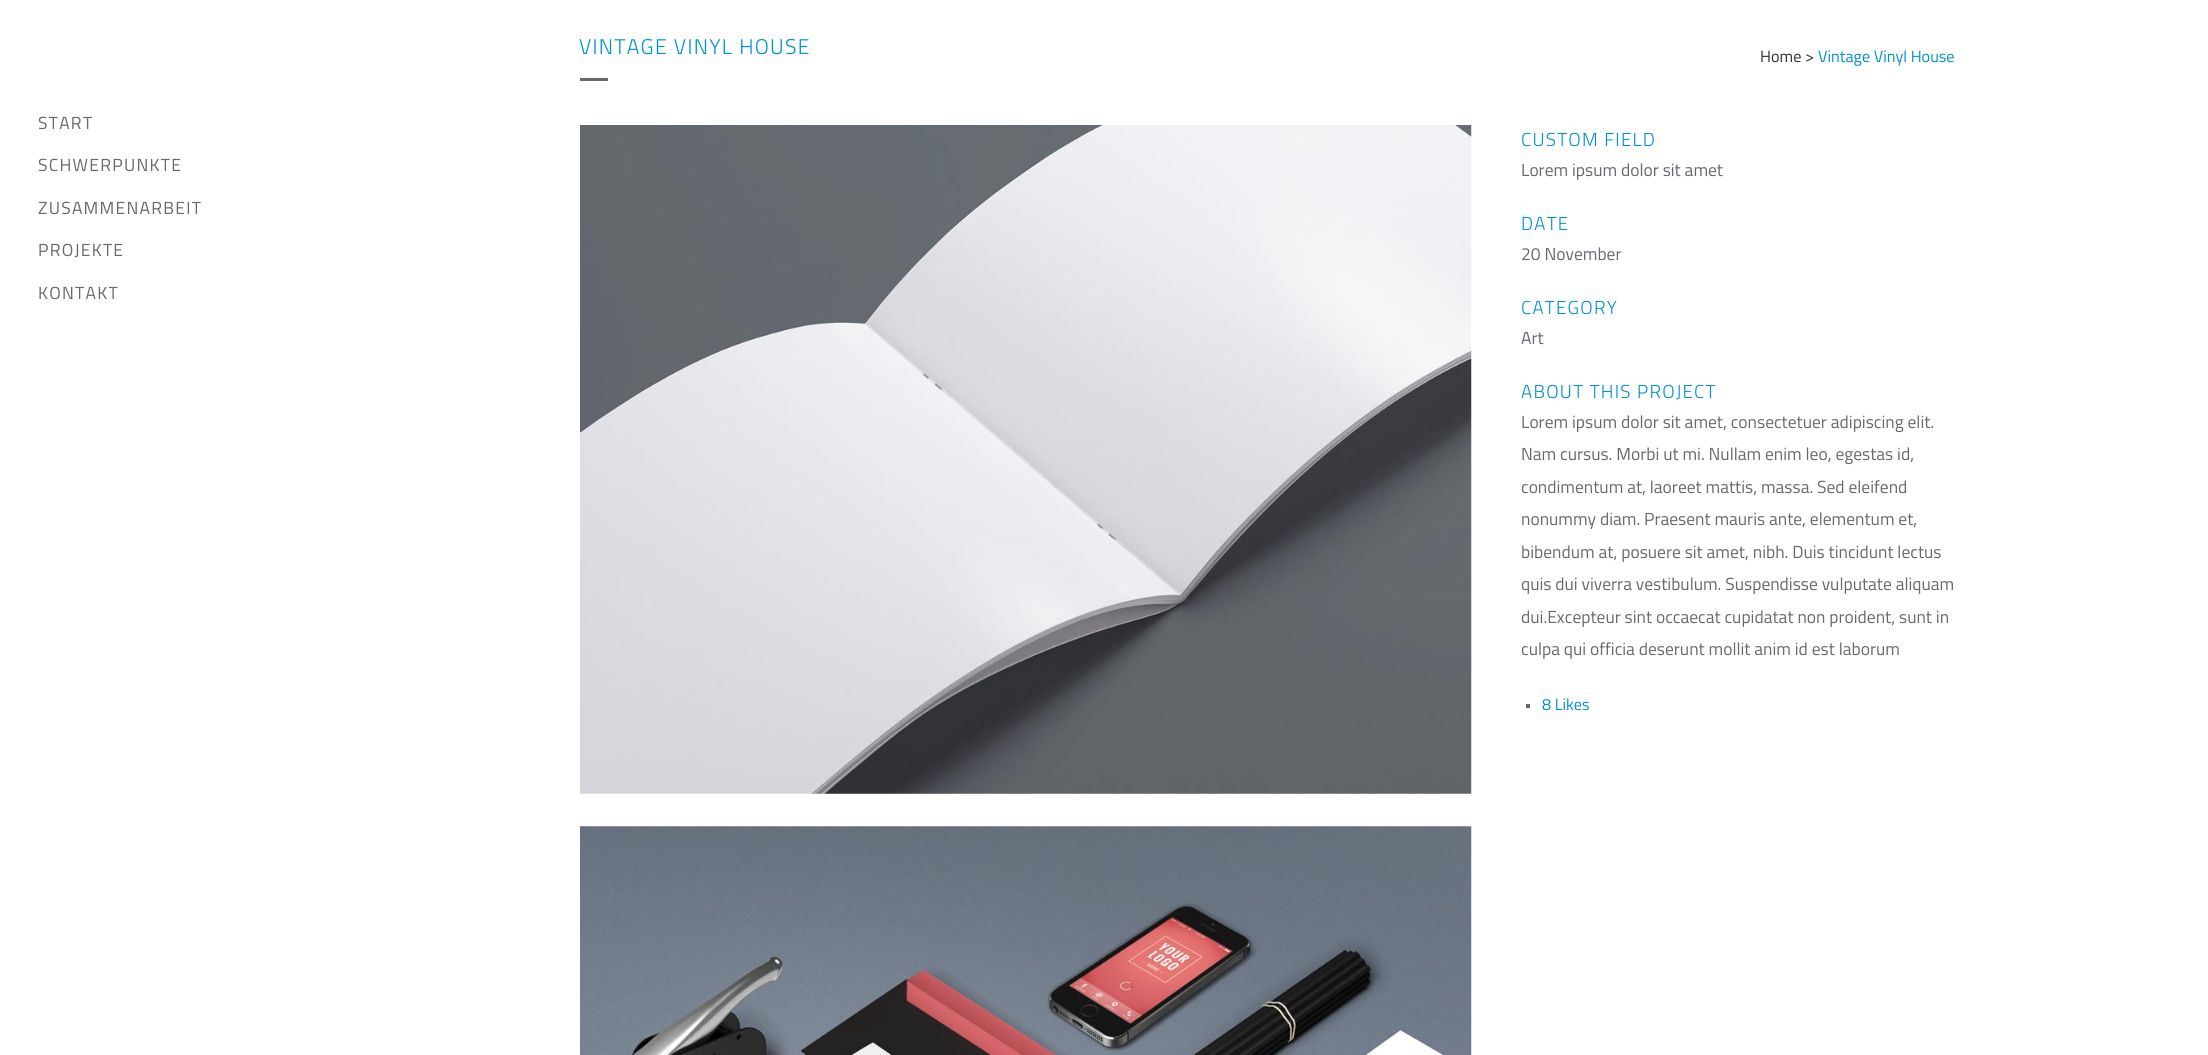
#include <cairo.h>
#include <math.h>
#include <stddef.h>


static void spaced_text(cairo_t *cr, double x, double y, const char *s, double letter, double word) {
    cairo_move_to(cr, x, y);
    while (*s) {
        char ch[5] = {0};
        int n = 0;
        do ch[n++] = *s++; while ((*s & 0xC0) == 0x80);
        cairo_show_text(cr, ch);
        cairo_rel_move_to(cr, letter + word * (*ch == ' '), 0);
    }
}

static void picture(cairo_t *cr, const char *path, double x, double y, double w, double h) {
    cairo_surface_t *image = cairo_image_surface_create_from_png(path);
    cairo_save(cr);
    cairo_set_source_surface(cr, image, x, y);
    cairo_rectangle(cr, x, y, w, h);
    cairo_fill(cr);
    cairo_restore(cr);
    cairo_surface_destroy(image);
}

int main(void) {
    cairo_surface_t *surface = cairo_image_surface_create(CAIRO_FORMAT_RGB24, 2208, 1055);
    cairo_t *cr = cairo_create(surface);
    cairo_font_options_t *options = cairo_font_options_create();
    cairo_font_options_set_hint_metrics(options, CAIRO_HINT_METRICS_OFF);
    cairo_font_options_set_hint_style(options, CAIRO_HINT_STYLE_NONE);
    cairo_set_font_options(cr, options);
    cairo_set_miter_limit(cr, 4);
    cairo_set_source_rgb(cr, 1, 1, 1);
    cairo_paint(cr);
    cairo_select_font_face(cr, "Titillium Web", CAIRO_FONT_SLANT_NORMAL, CAIRO_FONT_WEIGHT_NORMAL);
    cairo_set_font_size(cr, 17.5);
    cairo_set_source_rgb(cr, 0.416, 0.404, 0.431);
    spaced_text(cr, 38, 129, "START", 1.25, 0);
    spaced_text(cr, 38, 171, "SCHWERPUNKTE", 1.25, 0);
    spaced_text(cr, 38, 214, "ZUSAMMENARBEIT", 1.25, 0);
    spaced_text(cr, 38, 256, "PROJEKTE", 1.25, 0);
    spaced_text(cr, 38, 299, "KONTAKT", 1.25, 0);
    cairo_select_font_face(cr, "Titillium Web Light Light", CAIRO_FONT_SLANT_NORMAL, CAIRO_FONT_WEIGHT_NORMAL);
    cairo_set_font_size(cr, 21.25);
    cairo_set_source_rgb(cr, 0, 0.569, 0.824);
    spaced_text(cr, 579, 54, "VINTAGE VINYL HOUSE", 1.25, 0);
    cairo_select_font_face(cr, "Titillium Web", CAIRO_FONT_SLANT_NORMAL, CAIRO_FONT_WEIGHT_NORMAL);
    cairo_set_font_size(cr, 16.25);
    cairo_set_source_rgb(cr, 0.188, 0.188, 0.188);
    cairo_move_to(cr, 1760, 62);
    cairo_show_text(cr, "Home >");
    cairo_set_source_rgb(cr, 0, 0.569, 0.824);
    cairo_move_to(cr, 1818, 62);
    cairo_show_text(cr, "Vintage Vinyl House");
    cairo_set_source_rgb(cr, 0.416, 0.404, 0.431);
    cairo_rectangle(cr, 580, 78, 28, 3);
    cairo_fill(cr);
    picture(cr, "img1.png", 580, 125, 892, 669);
    picture(cr, "img2.png", 580, 826, 892, 229);
    cairo_select_font_face(cr, "Titillium Web Light Light", CAIRO_FONT_SLANT_NORMAL, CAIRO_FONT_WEIGHT_NORMAL);
    cairo_set_font_size(cr, 18.75);
    cairo_set_source_rgb(cr, 0, 0.569, 0.824);
    spaced_text(cr, 1521, 146, "CUSTOM FIELD", 1.25, 0);
    cairo_select_font_face(cr, "Titillium Web", CAIRO_FONT_SLANT_NORMAL, CAIRO_FONT_WEIGHT_NORMAL);
    cairo_set_font_size(cr, 17.5);
    cairo_set_source_rgb(cr, 0.416, 0.404, 0.431);
    cairo_move_to(cr, 1521, 176);
    cairo_show_text(cr, "Lorem ipsum dolor sit amet");
    cairo_select_font_face(cr, "Titillium Web Light Light", CAIRO_FONT_SLANT_NORMAL, CAIRO_FONT_WEIGHT_NORMAL);
    cairo_set_font_size(cr, 18.75);
    cairo_set_source_rgb(cr, 0, 0.569, 0.824);
    spaced_text(cr, 1521, 230, "DATE", 1.25, 0);
    cairo_select_font_face(cr, "Titillium Web", CAIRO_FONT_SLANT_NORMAL, CAIRO_FONT_WEIGHT_NORMAL);
    cairo_set_font_size(cr, 17.5);
    cairo_set_source_rgb(cr, 0.416, 0.404, 0.431);
    cairo_move_to(cr, 1521, 260);
    cairo_show_text(cr, "20 November");
    cairo_select_font_face(cr, "Titillium Web Light Light", CAIRO_FONT_SLANT_NORMAL, CAIRO_FONT_WEIGHT_NORMAL);
    cairo_set_font_size(cr, 18.75);
    cairo_set_source_rgb(cr, 0, 0.569, 0.824);
    spaced_text(cr, 1521, 314, "CATEGORY", 1.25, 0);
    cairo_select_font_face(cr, "Titillium Web", CAIRO_FONT_SLANT_NORMAL, CAIRO_FONT_WEIGHT_NORMAL);
    cairo_set_font_size(cr, 17.5);
    cairo_set_source_rgb(cr, 0.416, 0.404, 0.431);
    cairo_move_to(cr, 1521, 344);
    cairo_show_text(cr, "Art");
    cairo_select_font_face(cr, "Titillium Web Light Light", CAIRO_FONT_SLANT_NORMAL, CAIRO_FONT_WEIGHT_NORMAL);
    cairo_set_font_size(cr, 18.75);
    cairo_set_source_rgb(cr, 0, 0.569, 0.824);
    spaced_text(cr, 1521, 398, "ABOUT THIS PROJECT", 1.25, 0);
    cairo_select_font_face(cr, "Titillium Web", CAIRO_FONT_SLANT_NORMAL, CAIRO_FONT_WEIGHT_NORMAL);
    cairo_set_font_size(cr, 17.5);
    cairo_set_source_rgb(cr, 0.416, 0.404, 0.431);
    cairo_move_to(cr, 1521, 428);
    cairo_show_text(cr, "Lorem ipsum dolor sit amet, consectetuer adipiscing elit.");
    cairo_move_to(cr, 1521, 460);
    cairo_show_text(cr, "Nam cursus. Morbi ut mi. Nullam enim leo, egestas id,");
    cairo_move_to(cr, 1521, 493);
    cairo_show_text(cr, "condimentum at, laoreet mattis, massa. Sed eleifend");
    cairo_move_to(cr, 1521, 525);
    cairo_show_text(cr, "nonummy diam. Praesent mauris ante, elementum et,");
    cairo_move_to(cr, 1521, 558);
    cairo_show_text(cr, "bibendum at, posuere sit amet, nibh. Duis tincidunt lectus");
    cairo_move_to(cr, 1521, 590);
    cairo_show_text(cr, "quis dui viverra vestibulum. Suspendisse vulputate aliquam");
    cairo_move_to(cr, 1521, 623);
    cairo_show_text(cr, "dui.Excepteur sint occaecat cupidatat non proident, sunt in");
    cairo_move_to(cr, 1521, 655);
    cairo_show_text(cr, "culpa qui officia deserunt mollit anim id est laborum");
    cairo_rectangle(cr, 1526, 704, 4, 4);
    cairo_fill(cr);
    cairo_set_font_size(cr, 16.25);
    cairo_set_source_rgb(cr, 0, 0.569, 0.824);
    cairo_move_to(cr, 1542, 710);
    cairo_show_text(cr, "8 Likes");
    cairo_surface_write_to_png(surface, "page.png");
    cairo_font_options_destroy(options);
    cairo_destroy(cr);
    cairo_surface_destroy(surface);
    return 0;
}
